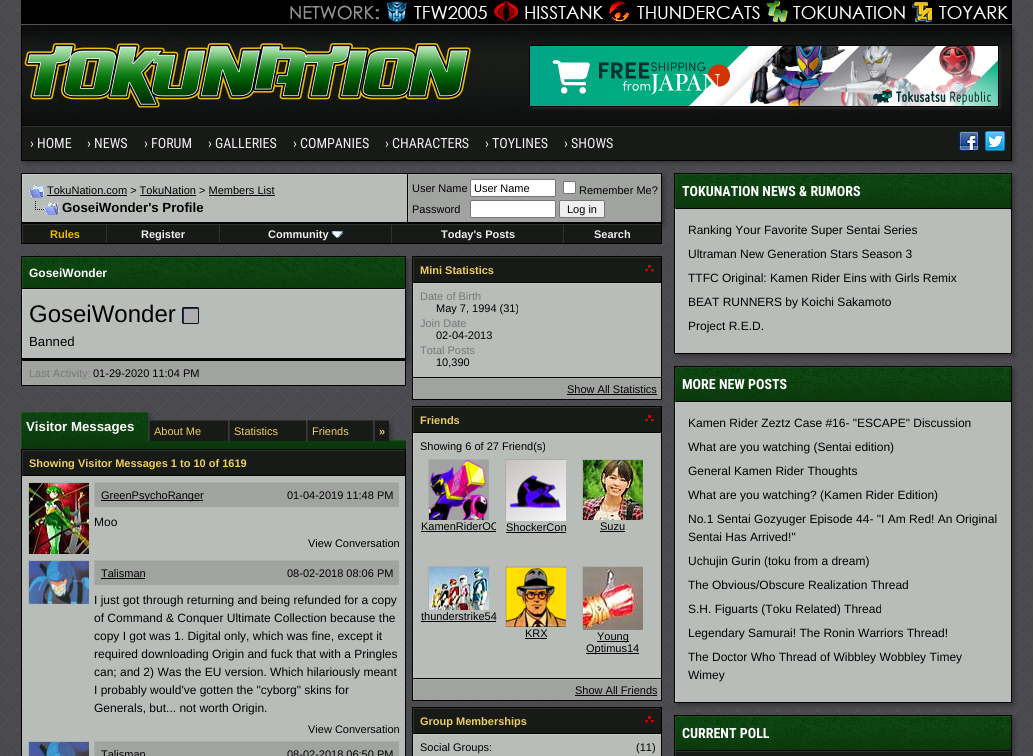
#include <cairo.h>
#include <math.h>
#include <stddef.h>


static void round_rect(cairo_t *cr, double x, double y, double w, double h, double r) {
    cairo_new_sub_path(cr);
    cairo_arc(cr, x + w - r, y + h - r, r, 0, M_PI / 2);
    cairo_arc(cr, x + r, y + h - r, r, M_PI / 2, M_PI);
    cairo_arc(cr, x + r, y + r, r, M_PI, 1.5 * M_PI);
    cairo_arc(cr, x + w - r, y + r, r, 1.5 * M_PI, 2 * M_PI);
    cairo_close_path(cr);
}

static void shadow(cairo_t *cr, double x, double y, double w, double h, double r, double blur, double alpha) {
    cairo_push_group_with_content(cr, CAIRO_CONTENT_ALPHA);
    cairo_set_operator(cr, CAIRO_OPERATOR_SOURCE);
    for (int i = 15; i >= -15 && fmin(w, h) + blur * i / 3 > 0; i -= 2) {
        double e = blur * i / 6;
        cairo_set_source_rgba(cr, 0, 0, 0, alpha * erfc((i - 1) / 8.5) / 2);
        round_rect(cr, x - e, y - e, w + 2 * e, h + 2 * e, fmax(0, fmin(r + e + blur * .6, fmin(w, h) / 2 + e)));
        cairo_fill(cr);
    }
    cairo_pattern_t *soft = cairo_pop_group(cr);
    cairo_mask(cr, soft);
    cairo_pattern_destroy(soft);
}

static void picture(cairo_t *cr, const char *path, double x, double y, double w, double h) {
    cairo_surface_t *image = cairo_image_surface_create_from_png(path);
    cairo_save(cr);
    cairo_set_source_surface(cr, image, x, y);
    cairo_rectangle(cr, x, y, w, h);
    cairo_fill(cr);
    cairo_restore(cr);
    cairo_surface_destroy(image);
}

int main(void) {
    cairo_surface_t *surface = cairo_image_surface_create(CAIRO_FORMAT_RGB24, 1033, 756);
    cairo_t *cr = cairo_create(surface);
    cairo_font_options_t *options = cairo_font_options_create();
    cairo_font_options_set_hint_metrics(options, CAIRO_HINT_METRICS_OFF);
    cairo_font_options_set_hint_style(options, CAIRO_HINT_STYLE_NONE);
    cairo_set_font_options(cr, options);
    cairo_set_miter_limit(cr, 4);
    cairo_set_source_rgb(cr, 1, 1, 1);
    cairo_paint(cr);
    picture(cr, "img1.png", 0, 0, 1033, 756);
    cairo_set_source_rgb(cr, 0, 0, 0);
    cairo_rectangle(cr, 21, 0, 991, 24);
    cairo_fill(cr);
    cairo_set_source_rgb(cr, 0.329, 0.329, 0.329);
    cairo_rectangle(cr, 21, 24, 991, 1);
    cairo_fill(cr);
    picture(cr, "img2.png", 290, 0, 718, 23);
    picture(cr, "img3.png", 378, 1, 109, 21);
    picture(cr, "img4.png", 493, 1, 110, 22);
    picture(cr, "img5.png", 608, 1, 152, 21);
    cairo_set_source_rgb(cr, 0.196, 0.196, 0.212);
    shadow(cr, 25, 29, 989, 98, 0, 2.5, 1);
    picture(cr, "img6.png", 22, 25, 989, 100);
    cairo_set_source_rgb(cr, 0, 0, 0);
    cairo_rectangle(cr, 1011, 25, 1, 100);
    cairo_fill(cr);
    cairo_rectangle(cr, 21, 25, 1, 100);
    cairo_fill(cr);
    picture(cr, "img7.png", 23, 41, 451, 68);
    cairo_set_source_rgb(cr, 0.2, 0.2, 0.2);
    shadow(cr, 532, 48, 468, 60, 0, 1.5, 1);
    cairo_rectangle(cr, 529.5, 45.5, 469, 61);
    cairo_set_source_rgb(cr, 0, 0, 0);
    cairo_set_line_width(cr, 1);
    cairo_stroke(cr);
    picture(cr, "img8.png", 530, 46, 468, 60);
    cairo_set_source_rgb(cr, 0.196, 0.196, 0.212);
    shadow(cr, 25, 129, 989, 34, 0, 2.5, 1);
    cairo_set_source_rgb(cr, 0.094, 0.102, 0.094);
    cairo_rectangle(cr, 22, 127, 989, 33);
    cairo_fill(cr);
    cairo_set_source_rgb(cr, 0.184, 0.2, 0.184);
    cairo_rectangle(cr, 22, 126, 989, 1);
    cairo_fill(cr);
    cairo_rectangle(cr, 21.5, 125.5, 990, 35);
    cairo_set_source_rgb(cr, 0, 0, 0);
    cairo_stroke(cr);
    cairo_select_font_face(cr, "Roboto Condensed", CAIRO_FONT_SLANT_NORMAL, CAIRO_FONT_WEIGHT_NORMAL);
    cairo_set_font_size(cr, 14);
    cairo_set_source_rgb(cr, 0.933, 0.933, 0.933);
    cairo_move_to(cr, 30, 148);
    cairo_show_text(cr, "› HOME");
    cairo_move_to(cr, 87, 148);
    cairo_show_text(cr, "› NEWS");
    cairo_move_to(cr, 144, 148);
    cairo_show_text(cr, "› FORUM");
    cairo_move_to(cr, 208, 148);
    cairo_show_text(cr, "› GALLERIES");
    cairo_move_to(cr, 293, 148);
    cairo_show_text(cr, "› COMPANIES");
    cairo_move_to(cr, 385, 148);
    cairo_show_text(cr, "› CHARACTERS");
    cairo_move_to(cr, 485, 148);
    cairo_show_text(cr, "› TOYLINES");
    cairo_move_to(cr, 564, 148);
    cairo_show_text(cr, "› SHOWS");
    picture(cr, "img9.png", 959, 131, 20, 20);
    picture(cr, "img10.png", 985, 131, 20, 20);
    cairo_set_source_rgb(cr, 0.196, 0.196, 0.212);
    shadow(cr, 25, 177, 639, 48, 0, 2.5, 1);
    cairo_set_source_rgb(cr, 0, 0, 0);
    cairo_rectangle(cr, 21, 173, 641, 71);
    cairo_fill(cr);
    cairo_set_source_rgb(cr, 0.725, 0.741, 0.725);
    cairo_rectangle(cr, 23, 175, 384, 47);
    cairo_fill(cr);
    cairo_set_source_rgb(cr, 0.773, 0.788, 0.776);
    cairo_rectangle(cr, 22, 174, 385, 1);
    cairo_fill(cr);
    cairo_rectangle(cr, 22, 174, 1, 48);
    cairo_fill(cr);
    picture(cr, "img11.png", 29, 185, 15, 13);
    cairo_select_font_face(cr, "Liberation Sans", CAIRO_FONT_SLANT_NORMAL, CAIRO_FONT_WEIGHT_NORMAL);
    cairo_set_font_size(cr, 11);
    cairo_set_source_rgb(cr, 0, 0, 0);
    cairo_move_to(cr, 47, 194);
    cairo_show_text(cr, "TokuNation.com > TokuNation");
    cairo_rectangle(cr, 47, 195, 80, 1);
    cairo_fill(cr);
    cairo_rectangle(cr, 140, 195, 56, 1);
    cairo_fill(cr);
    cairo_move_to(cr, 199, 194);
    cairo_show_text(cr, "> Members List");
    cairo_rectangle(cr, 209, 195, 66, 1);
    cairo_fill(cr);
    picture(cr, "img12.png", 35, 201, 24, 14);
    cairo_select_font_face(cr, "Liberation Sans", CAIRO_FONT_SLANT_NORMAL, CAIRO_FONT_WEIGHT_BOLD);
    cairo_set_font_size(cr, 13.25);
    cairo_move_to(cr, 62, 212);
    cairo_show_text(cr, "GoseiWonder's Profile");
    cairo_set_source_rgb(cr, 0.627, 0.639, 0.627);
    cairo_rectangle(cr, 409, 175, 252, 47);
    cairo_fill(cr);
    cairo_set_source_rgb(cr, 0.675, 0.69, 0.678);
    cairo_rectangle(cr, 408, 174, 253, 1);
    cairo_fill(cr);
    cairo_rectangle(cr, 408, 174, 1, 48);
    cairo_fill(cr);
    cairo_select_font_face(cr, "Liberation Sans", CAIRO_FONT_SLANT_NORMAL, CAIRO_FONT_WEIGHT_NORMAL);
    cairo_set_font_size(cr, 11);
    cairo_set_source_rgb(cr, 0, 0, 0);
    cairo_move_to(cr, 412, 192);
    cairo_show_text(cr, "User Name");
    cairo_set_source_rgb(cr, 1, 1, 1);
    round_rect(cr, 470.5, 179.5, 85, 17, 1.5);
    cairo_fill_preserve(cr);
    cairo_set_source_rgb(cr, 0.463, 0.463, 0.463);
    cairo_stroke(cr);
    cairo_set_source_rgb(cr, 0, 0, 0);
    cairo_move_to(cr, 474, 192);
    cairo_show_text(cr, "User Name");
    cairo_set_source_rgb(cr, 1, 1, 1);
    round_rect(cr, 563.5, 181.5, 12, 12, 1.5);
    cairo_fill_preserve(cr);
    cairo_set_source_rgb(cr, 0.463, 0.463, 0.463);
    cairo_stroke(cr);
    cairo_set_source_rgb(cr, 0, 0, 0);
    cairo_move_to(cr, 579, 194);
    cairo_show_text(cr, "Remember Me?");
    cairo_move_to(cr, 412, 213);
    cairo_show_text(cr, "Password");
    cairo_set_source_rgb(cr, 1, 1, 1);
    round_rect(cr, 470.5, 200.5, 85, 17, 1.5);
    cairo_fill_preserve(cr);
    cairo_set_source_rgb(cr, 0.463, 0.463, 0.463);
    cairo_stroke(cr);
    cairo_set_source_rgb(cr, 0.937, 0.937, 0.937);
    round_rect(cr, 559.5, 200.5, 45, 17, 1.5);
    cairo_fill_preserve(cr);
    cairo_set_source_rgb(cr, 0.463, 0.463, 0.463);
    cairo_stroke(cr);
    cairo_set_source_rgb(cr, 0, 0, 0);
    cairo_move_to(cr, 567, 213);
    cairo_show_text(cr, "Log in");
    cairo_set_source_rgb(cr, 0.094, 0.102, 0.094);
    cairo_rectangle(cr, 23, 225, 83, 18);
    cairo_fill(cr);
    cairo_set_source_rgb(cr, 0.184, 0.2, 0.184);
    cairo_rectangle(cr, 22, 224, 639, 1);
    cairo_fill(cr);
    cairo_rectangle(cr, 22, 224, 1, 19);
    cairo_fill(cr);
    cairo_select_font_face(cr, "Liberation Sans", CAIRO_FONT_SLANT_NORMAL, CAIRO_FONT_WEIGHT_BOLD);
    cairo_set_source_rgb(cr, 0.922, 0.737, 0);
    cairo_move_to(cr, 50, 238);
    cairo_show_text(cr, "Rules");
    cairo_set_source_rgb(cr, 0.094, 0.102, 0.094);
    cairo_rectangle(cr, 107, 225, 112, 18);
    cairo_fill(cr);
    cairo_set_source_rgb(cr, 0.184, 0.2, 0.184);
    cairo_rectangle(cr, 106, 224, 1, 19);
    cairo_fill(cr);
    cairo_set_source_rgb(cr, 0.933, 0.933, 0.933);
    cairo_move_to(cr, 141, 238);
    cairo_show_text(cr, "Register");
    cairo_set_source_rgb(cr, 0.094, 0.102, 0.094);
    cairo_rectangle(cr, 220, 225, 171, 18);
    cairo_fill(cr);
    cairo_set_source_rgb(cr, 0.184, 0.2, 0.184);
    cairo_rectangle(cr, 219, 224, 1, 19);
    cairo_fill(cr);
    cairo_set_source_rgb(cr, 0.933, 0.933, 0.933);
    cairo_move_to(cr, 268, 238);
    cairo_show_text(cr, "Community");
    picture(cr, "img13.png", 332, 231, 11, 7);
    cairo_set_source_rgb(cr, 0.094, 0.102, 0.094);
    cairo_rectangle(cr, 392, 225, 171, 18);
    cairo_fill(cr);
    cairo_set_source_rgb(cr, 0.184, 0.2, 0.184);
    cairo_rectangle(cr, 391, 224, 1, 19);
    cairo_fill(cr);
    cairo_set_source_rgb(cr, 0.933, 0.933, 0.933);
    cairo_move_to(cr, 441, 238);
    cairo_show_text(cr, "Today's Posts");
    cairo_set_source_rgb(cr, 0.094, 0.102, 0.094);
    cairo_rectangle(cr, 564, 225, 97, 18);
    cairo_fill(cr);
    cairo_set_source_rgb(cr, 0.184, 0.2, 0.184);
    cairo_rectangle(cr, 563, 224, 1, 19);
    cairo_fill(cr);
    cairo_set_source_rgb(cr, 0.933, 0.933, 0.933);
    cairo_move_to(cr, 594, 238);
    cairo_show_text(cr, "Search");
    cairo_set_source_rgb(cr, 0.196, 0.196, 0.212);
    shadow(cr, 25, 260, 383, 101, 0, 2.5, 1);
    cairo_set_source_rgb(cr, 0, 0, 0);
    cairo_rectangle(cr, 21, 256, 385, 130);
    cairo_fill(cr);
    picture(cr, "img14.png", 23, 258, 382, 30);
    cairo_set_source_rgb(cr, 0.067, 0.329, 0.078);
    cairo_rectangle(cr, 22, 257, 383, 1);
    cairo_fill(cr);
    cairo_rectangle(cr, 22, 257, 1, 31);
    cairo_fill(cr);
    cairo_set_font_size(cr, 12);
    cairo_set_source_rgb(cr, 1, 1, 1);
    cairo_move_to(cr, 29, 277);
    cairo_show_text(cr, "GoseiWonder");
    cairo_set_source_rgb(cr, 0.725, 0.741, 0.725);
    cairo_rectangle(cr, 23, 290, 382, 68);
    cairo_fill(cr);
    cairo_set_source_rgb(cr, 0.773, 0.788, 0.776);
    cairo_rectangle(cr, 22, 289, 383, 1);
    cairo_fill(cr);
    cairo_rectangle(cr, 22, 289, 1, 69);
    cairo_fill(cr);
    cairo_select_font_face(cr, "Liberation Sans", CAIRO_FONT_SLANT_NORMAL, CAIRO_FONT_WEIGHT_NORMAL);
    cairo_set_font_size(cr, 24);
    cairo_set_source_rgb(cr, 0, 0, 0);
    cairo_move_to(cr, 29, 322);
    cairo_show_text(cr, "GoseiWonder");
    picture(cr, "img15.png", 182, 307, 17, 17);
    cairo_set_font_size(cr, 13.25);
    cairo_move_to(cr, 29, 346);
    cairo_show_text(cr, "Banned");
    cairo_set_source_rgb(cr, 0.627, 0.639, 0.627);
    cairo_rectangle(cr, 23, 361, 382, 24);
    cairo_fill(cr);
    cairo_set_source_rgb(cr, 0.675, 0.69, 0.678);
    cairo_rectangle(cr, 22, 361, 1, 24);
    cairo_fill(cr);
    cairo_set_font_size(cr, 11);
    cairo_set_source_rgb(cr, 0.467, 0.467, 0.467);
    cairo_move_to(cr, 29, 377);
    cairo_show_text(cr, "Last Activity:");
    cairo_set_source_rgb(cr, 0, 0, 0);
    cairo_move_to(cr, 93, 377);
    cairo_show_text(cr, "01-29-2020 11:04 PM");
    cairo_set_source_rgb(cr, 0.043, 0.216, 0.051);
    cairo_rectangle(cr, 22, 445, 384, 4);
    cairo_fill(cr);
    picture(cr, "img17.png", 22, 441, 384, 4);
    cairo_set_source_rgb(cr, 0.067, 0.329, 0.078);
    cairo_rectangle(cr, 148, 440, 258, 1);
    cairo_fill(cr);
    cairo_rectangle(cr, 21, 440, 1, 9);
    cairo_fill(cr);
    cairo_set_source_rgb(cr, 0, 0, 0);
    cairo_rectangle(cr, 21, 449, 385, 307);
    cairo_fill(cr);
    cairo_set_source_rgb(cr, 0.094, 0.102, 0.094);
    cairo_rectangle(cr, 23, 451, 382, 24);
    cairo_fill(cr);
    cairo_set_source_rgb(cr, 0.184, 0.2, 0.184);
    cairo_rectangle(cr, 22, 450, 383, 1);
    cairo_fill(cr);
    cairo_rectangle(cr, 22, 450, 1, 25);
    cairo_fill(cr);
    cairo_save(cr);
    cairo_rectangle(cr, 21, 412, 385, 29);
    cairo_clip(cr);
    cairo_set_source_rgb(cr, 0.196, 0.196, 0.212);
    shadow(cr, 25, 416, 125, 27, 0, 2.5, 1);
    cairo_restore(cr);
    picture(cr, "img16.png", 22, 413, 126, 28);
    cairo_set_source_rgb(cr, 0.067, 0.329, 0.078);
    cairo_rectangle(cr, 21, 412, 127, 1);
    cairo_fill(cr);
    cairo_rectangle(cr, 21, 412, 1, 29);
    cairo_fill(cr);
    cairo_select_font_face(cr, "Liberation Sans", CAIRO_FONT_SLANT_NORMAL, CAIRO_FONT_WEIGHT_BOLD);
    cairo_set_font_size(cr, 13.25);
    cairo_set_source_rgb(cr, 1, 1, 1);
    cairo_move_to(cr, 26, 431);
    cairo_show_text(cr, "Visitor Messages");
    cairo_save(cr);
    cairo_rectangle(cr, 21, 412, 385, 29);
    cairo_clip(cr);
    cairo_set_source_rgb(cr, 0.196, 0.196, 0.212);
    shadow(cr, 153, 424, 77, 19, 0, 2.5, 1);
    cairo_restore(cr);
    cairo_set_source_rgb(cr, 0.094, 0.102, 0.094);
    cairo_rectangle(cr, 150, 421, 78, 20);
    cairo_fill(cr);
    cairo_set_source_rgb(cr, 0.184, 0.2, 0.184);
    cairo_rectangle(cr, 149, 420, 79, 1);
    cairo_fill(cr);
    cairo_rectangle(cr, 149, 420, 1, 21);
    cairo_fill(cr);
    cairo_select_font_face(cr, "Liberation Sans", CAIRO_FONT_SLANT_NORMAL, CAIRO_FONT_WEIGHT_NORMAL);
    cairo_set_font_size(cr, 11);
    cairo_set_source_rgb(cr, 0.922, 0.808, 0.357);
    cairo_move_to(cr, 154, 435);
    cairo_show_text(cr, "About Me");
    cairo_save(cr);
    cairo_rectangle(cr, 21, 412, 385, 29);
    cairo_clip(cr);
    cairo_set_source_rgb(cr, 0.196, 0.196, 0.212);
    shadow(cr, 233, 424, 75, 19, 0, 2.5, 1);
    cairo_restore(cr);
    cairo_set_source_rgb(cr, 0.094, 0.102, 0.094);
    cairo_rectangle(cr, 230, 421, 76, 20);
    cairo_fill(cr);
    cairo_set_source_rgb(cr, 0.184, 0.2, 0.184);
    cairo_rectangle(cr, 229, 420, 77, 1);
    cairo_fill(cr);
    cairo_rectangle(cr, 229, 420, 1, 21);
    cairo_fill(cr);
    cairo_set_source_rgb(cr, 0.922, 0.808, 0.357);
    cairo_move_to(cr, 234, 435);
    cairo_show_text(cr, "Statistics");
    cairo_save(cr);
    cairo_rectangle(cr, 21, 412, 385, 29);
    cairo_clip(cr);
    cairo_set_source_rgb(cr, 0.196, 0.196, 0.212);
    shadow(cr, 311, 424, 64, 19, 0, 2.5, 1);
    cairo_restore(cr);
    cairo_set_source_rgb(cr, 0.094, 0.102, 0.094);
    cairo_rectangle(cr, 308, 421, 65, 20);
    cairo_fill(cr);
    cairo_set_source_rgb(cr, 0.184, 0.2, 0.184);
    cairo_rectangle(cr, 307, 420, 66, 1);
    cairo_fill(cr);
    cairo_rectangle(cr, 307, 420, 1, 21);
    cairo_fill(cr);
    cairo_set_source_rgb(cr, 0.922, 0.808, 0.357);
    cairo_move_to(cr, 312, 435);
    cairo_show_text(cr, "Friends");
    cairo_save(cr);
    cairo_rectangle(cr, 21, 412, 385, 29);
    cairo_clip(cr);
    cairo_set_source_rgb(cr, 0.196, 0.196, 0.212);
    shadow(cr, 378, 424, 13, 19, 0, 2.5, 1);
    cairo_restore(cr);
    cairo_set_source_rgb(cr, 0.094, 0.102, 0.094);
    cairo_rectangle(cr, 375, 421, 14, 20);
    cairo_fill(cr);
    cairo_set_source_rgb(cr, 0.184, 0.2, 0.184);
    cairo_rectangle(cr, 374, 420, 15, 1);
    cairo_fill(cr);
    cairo_rectangle(cr, 374, 420, 1, 21);
    cairo_fill(cr);
    cairo_select_font_face(cr, "Liberation Sans", CAIRO_FONT_SLANT_NORMAL, CAIRO_FONT_WEIGHT_BOLD);
    cairo_set_source_rgb(cr, 0.922, 0.808, 0.357);
    cairo_move_to(cr, 379, 435);
    cairo_show_text(cr, "»");
    cairo_move_to(cr, 29, 467);
    cairo_show_text(cr, "Showing Visitor Messages 1 to 10 of 1619");
    cairo_set_source_rgb(cr, 0.725, 0.741, 0.725);
    cairo_rectangle(cr, 22, 476, 383, 280);
    cairo_fill(cr);
    cairo_set_source_rgb(cr, 0.675, 0.69, 0.678);
    cairo_rectangle(cr, 28, 482, 61, 1);
    cairo_fill(cr);
    cairo_rectangle(cr, 28, 482, 1, 72);
    cairo_fill(cr);
    picture(cr, "img18.png", 29, 483, 60, 71);
    cairo_set_source_rgb(cr, 0.627, 0.639, 0.627);
    cairo_rectangle(cr, 95, 483, 304, 24);
    cairo_fill(cr);
    cairo_set_source_rgb(cr, 0.675, 0.69, 0.678);
    cairo_rectangle(cr, 94, 482, 305, 1);
    cairo_fill(cr);
    cairo_rectangle(cr, 94, 482, 1, 25);
    cairo_fill(cr);
    cairo_set_source_rgb(cr, 0, 0, 0);
    cairo_rectangle(cr, 101, 500, 102, 1);
    cairo_fill(cr);
    cairo_select_font_face(cr, "Liberation Sans", CAIRO_FONT_SLANT_NORMAL, CAIRO_FONT_WEIGHT_NORMAL);
    cairo_move_to(cr, 101, 499);
    cairo_show_text(cr, "GreenPsychoRanger");
    cairo_move_to(cr, 287, 499);
    cairo_show_text(cr, "01-04-2019 11:48 PM");
    cairo_set_font_size(cr, 12);
    cairo_move_to(cr, 94, 526);
    cairo_show_text(cr, "Moo");
    cairo_set_font_size(cr, 11);
    cairo_move_to(cr, 308, 547);
    cairo_show_text(cr, "View Conversation");
    cairo_set_source_rgb(cr, 0.675, 0.69, 0.678);
    cairo_rectangle(cr, 28, 560, 61, 1);
    cairo_fill(cr);
    cairo_rectangle(cr, 28, 560, 1, 44);
    cairo_fill(cr);
    picture(cr, "img19.png", 29, 561, 60, 43);
    cairo_set_source_rgb(cr, 0.627, 0.639, 0.627);
    cairo_rectangle(cr, 95, 561, 304, 24);
    cairo_fill(cr);
    cairo_set_source_rgb(cr, 0.675, 0.69, 0.678);
    cairo_rectangle(cr, 94, 560, 305, 1);
    cairo_fill(cr);
    cairo_rectangle(cr, 94, 560, 1, 25);
    cairo_fill(cr);
    cairo_set_source_rgb(cr, 0, 0, 0);
    cairo_move_to(cr, 101, 577);
    cairo_show_text(cr, "Talisman");
    cairo_rectangle(cr, 101, 578, 44, 1);
    cairo_fill(cr);
    cairo_move_to(cr, 287, 577);
    cairo_show_text(cr, "08-02-2018 08:06 PM");
    cairo_set_font_size(cr, 12);
    cairo_move_to(cr, 94, 604);
    cairo_show_text(cr, "I just got through returning and being refunded for a copy");
    cairo_move_to(cr, 94, 622);
    cairo_show_text(cr, "of Command & Conquer Ultimate Collection because the");
    cairo_move_to(cr, 94, 640);
    cairo_show_text(cr, "copy I got was 1. Digital only, which was fine, except it");
    cairo_move_to(cr, 94, 658);
    cairo_show_text(cr, "required downloading Origin and fuck that with a Pringles");
    cairo_move_to(cr, 94, 676);
    cairo_show_text(cr, "can; and 2) Was the EU version. Which hilariously meant");
    cairo_move_to(cr, 94, 694);
    cairo_show_text(cr, "I probably would've gotten the \"cyborg\" skins for");
    cairo_move_to(cr, 94, 712);
    cairo_show_text(cr, "Generals, but... not worth Origin.");
    cairo_set_font_size(cr, 11);
    cairo_move_to(cr, 308, 733);
    cairo_show_text(cr, "View Conversation");
    cairo_set_source_rgb(cr, 0.675, 0.69, 0.678);
    cairo_rectangle(cr, 28, 741, 61, 1);
    cairo_fill(cr);
    cairo_rectangle(cr, 28, 741, 1, 15);
    cairo_fill(cr);
    picture(cr, "img20.png", 29, 742, 60, 14);
    cairo_set_source_rgb(cr, 0.627, 0.639, 0.627);
    cairo_rectangle(cr, 95, 742, 304, 14);
    cairo_fill(cr);
    cairo_set_source_rgb(cr, 0.675, 0.69, 0.678);
    cairo_rectangle(cr, 94, 741, 305, 1);
    cairo_fill(cr);
    cairo_rectangle(cr, 94, 741, 1, 15);
    cairo_fill(cr);
    cairo_set_source_rgb(cr, 0, 0, 0);
    cairo_move_to(cr, 101, 758);
    cairo_show_text(cr, "Talisman");
    cairo_move_to(cr, 287, 758);
    cairo_show_text(cr, "08-02-2018 06:50 PM");
    cairo_rectangle(cr, 412, 256, 250, 144);
    cairo_fill(cr);
    cairo_set_source_rgb(cr, 0.094, 0.102, 0.094);
    cairo_rectangle(cr, 414, 258, 247, 24);
    cairo_fill(cr);
    cairo_set_source_rgb(cr, 0.184, 0.2, 0.184);
    cairo_rectangle(cr, 413, 257, 248, 1);
    cairo_fill(cr);
    cairo_rectangle(cr, 413, 257, 1, 25);
    cairo_fill(cr);
    cairo_select_font_face(cr, "Liberation Sans", CAIRO_FONT_SLANT_NORMAL, CAIRO_FONT_WEIGHT_BOLD);
    cairo_set_source_rgb(cr, 0.922, 0.808, 0.357);
    cairo_move_to(cr, 420, 274);
    cairo_show_text(cr, "Mini Statistics");
    picture(cr, "img21.png", 645, 265, 9, 7);
    cairo_set_source_rgb(cr, 0.725, 0.741, 0.725);
    cairo_rectangle(cr, 414, 284, 247, 93);
    cairo_fill(cr);
    cairo_set_source_rgb(cr, 0.773, 0.788, 0.776);
    cairo_rectangle(cr, 413, 283, 248, 1);
    cairo_fill(cr);
    cairo_rectangle(cr, 413, 283, 1, 94);
    cairo_fill(cr);
    cairo_select_font_face(cr, "Liberation Sans", CAIRO_FONT_SLANT_NORMAL, CAIRO_FONT_WEIGHT_NORMAL);
    cairo_set_source_rgb(cr, 0.467, 0.467, 0.467);
    cairo_move_to(cr, 420, 300);
    cairo_show_text(cr, "Date of Birth");
    cairo_set_source_rgb(cr, 0, 0, 0);
    cairo_move_to(cr, 436, 312);
    cairo_show_text(cr, "May 7, 1994 (31)");
    cairo_set_source_rgb(cr, 0.467, 0.467, 0.467);
    cairo_move_to(cr, 420, 327);
    cairo_show_text(cr, "Join Date");
    cairo_set_source_rgb(cr, 0, 0, 0);
    cairo_move_to(cr, 436, 339);
    cairo_show_text(cr, "02-04-2013");
    cairo_set_source_rgb(cr, 0.467, 0.467, 0.467);
    cairo_move_to(cr, 420, 354);
    cairo_show_text(cr, "Total Posts");
    cairo_set_source_rgb(cr, 0, 0, 0);
    cairo_move_to(cr, 436, 366);
    cairo_show_text(cr, "10,390");
    cairo_set_source_rgb(cr, 0.627, 0.639, 0.627);
    cairo_rectangle(cr, 414, 379, 247, 20);
    cairo_fill(cr);
    cairo_set_source_rgb(cr, 0.675, 0.69, 0.678);
    cairo_rectangle(cr, 413, 378, 248, 1);
    cairo_fill(cr);
    cairo_rectangle(cr, 413, 378, 1, 21);
    cairo_fill(cr);
    cairo_set_source_rgb(cr, 0, 0, 0);
    cairo_move_to(cr, 567, 393);
    cairo_show_text(cr, "Show All Statistics");
    cairo_rectangle(cr, 567, 394, 90, 1);
    cairo_fill(cr);
    cairo_rectangle(cr, 412, 406, 250, 295);
    cairo_fill(cr);
    cairo_set_source_rgb(cr, 0.094, 0.102, 0.094);
    cairo_rectangle(cr, 414, 408, 247, 24);
    cairo_fill(cr);
    cairo_set_source_rgb(cr, 0.184, 0.2, 0.184);
    cairo_rectangle(cr, 413, 407, 248, 1);
    cairo_fill(cr);
    cairo_rectangle(cr, 413, 407, 1, 25);
    cairo_fill(cr);
    cairo_select_font_face(cr, "Liberation Sans", CAIRO_FONT_SLANT_NORMAL, CAIRO_FONT_WEIGHT_BOLD);
    cairo_set_source_rgb(cr, 0.922, 0.808, 0.357);
    cairo_move_to(cr, 420, 424);
    cairo_show_text(cr, "Friends");
    picture(cr, "img21.png", 645, 415, 9, 7);
    cairo_set_source_rgb(cr, 0.725, 0.741, 0.725);
    cairo_rectangle(cr, 414, 434, 247, 244);
    cairo_fill(cr);
    cairo_set_source_rgb(cr, 0.773, 0.788, 0.776);
    cairo_rectangle(cr, 413, 433, 248, 1);
    cairo_fill(cr);
    cairo_rectangle(cr, 413, 433, 1, 245);
    cairo_fill(cr);
    cairo_select_font_face(cr, "Liberation Sans", CAIRO_FONT_SLANT_NORMAL, CAIRO_FONT_WEIGHT_NORMAL);
    cairo_set_source_rgb(cr, 0, 0, 0);
    cairo_move_to(cr, 420, 450);
    cairo_show_text(cr, "Showing 6 of 27 Friend(s)");
    cairo_set_source_rgb(cr, 0.675, 0.69, 0.678);
    cairo_rectangle(cr, 428, 459, 61, 1);
    cairo_fill(cr);
    cairo_rectangle(cr, 428, 459, 1, 61);
    cairo_fill(cr);
    cairo_set_source_rgb(cr, 0.627, 0.639, 0.627);
    cairo_rectangle(cr, 429, 460, 60, 60);
    cairo_fill(cr);
    picture(cr, "img22.png", 429, 460, 59, 60);
    cairo_save(cr);
    cairo_rectangle(cr, 421, 459, 75, 105);
    cairo_clip(cr);
    cairo_set_source_rgb(cr, 0, 0, 0);
    cairo_move_to(cr, 421, 530);
    cairo_show_text(cr, "KamenRiderOO");
    cairo_restore(cr);
    cairo_set_source_rgb(cr, 0, 0, 0);
    cairo_rectangle(cr, 421, 531, 75, 1);
    cairo_fill(cr);
    cairo_set_source_rgb(cr, 0.675, 0.69, 0.678);
    cairo_rectangle(cr, 505, 459, 61, 1);
    cairo_fill(cr);
    cairo_rectangle(cr, 505, 459, 1, 62);
    cairo_fill(cr);
    picture(cr, "img23.png", 506, 460, 60, 61);
    cairo_set_source_rgb(cr, 0, 0, 0);
    cairo_move_to(cr, 506, 531);
    cairo_show_text(cr, "ShockerCon");
    cairo_rectangle(cr, 506, 532, 60, 1);
    cairo_fill(cr);
    cairo_set_source_rgb(cr, 0.675, 0.69, 0.678);
    cairo_rectangle(cr, 582, 459, 61, 1);
    cairo_fill(cr);
    cairo_rectangle(cr, 582, 459, 1, 61);
    cairo_fill(cr);
    picture(cr, "img24.png", 583, 460, 60, 60);
    cairo_set_source_rgb(cr, 0, 0, 0);
    cairo_move_to(cr, 600, 530);
    cairo_show_text(cr, "Suzu");
    cairo_rectangle(cr, 600, 531, 25, 1);
    cairo_fill(cr);
    cairo_set_source_rgb(cr, 0.675, 0.69, 0.678);
    cairo_rectangle(cr, 428, 566, 61, 1);
    cairo_fill(cr);
    cairo_rectangle(cr, 428, 566, 1, 44);
    cairo_fill(cr);
    picture(cr, "img25.png", 429, 567, 60, 43);
    cairo_set_source_rgb(cr, 0, 0, 0);
    cairo_move_to(cr, 421, 620);
    cairo_show_text(cr, "thunderstrike54");
    cairo_rectangle(cr, 421, 621, 75, 1);
    cairo_fill(cr);
    cairo_set_source_rgb(cr, 0.675, 0.69, 0.678);
    cairo_rectangle(cr, 505, 566, 61, 1);
    cairo_fill(cr);
    cairo_rectangle(cr, 505, 566, 1, 61);
    cairo_fill(cr);
    picture(cr, "img26.png", 506, 567, 60, 60);
    cairo_set_source_rgb(cr, 0, 0, 0);
    cairo_move_to(cr, 525, 637);
    cairo_show_text(cr, "KRX");
    cairo_rectangle(cr, 525, 638, 22, 1);
    cairo_fill(cr);
    cairo_set_source_rgb(cr, 0.675, 0.69, 0.678);
    cairo_rectangle(cr, 582, 566, 61, 1);
    cairo_fill(cr);
    cairo_rectangle(cr, 582, 566, 1, 64);
    cairo_fill(cr);
    picture(cr, "img27.png", 583, 567, 60, 63);
    cairo_set_source_rgb(cr, 0, 0, 0);
    cairo_rectangle(cr, 597, 641, 32, 1);
    cairo_fill(cr);
    cairo_move_to(cr, 597, 640);
    cairo_show_text(cr, "Young");
    cairo_rectangle(cr, 586, 653, 53, 1);
    cairo_fill(cr);
    cairo_move_to(cr, 586, 652);
    cairo_show_text(cr, "Optimus14");
    cairo_set_source_rgb(cr, 0.627, 0.639, 0.627);
    cairo_rectangle(cr, 414, 680, 247, 20);
    cairo_fill(cr);
    cairo_set_source_rgb(cr, 0.675, 0.69, 0.678);
    cairo_rectangle(cr, 413, 679, 248, 1);
    cairo_fill(cr);
    cairo_rectangle(cr, 413, 679, 1, 21);
    cairo_fill(cr);
    cairo_set_source_rgb(cr, 0, 0, 0);
    cairo_move_to(cr, 575, 694);
    cairo_show_text(cr, "Show All Friends");
    cairo_rectangle(cr, 575, 695, 82, 1);
    cairo_fill(cr);
    cairo_rectangle(cr, 412, 707, 250, 49);
    cairo_fill(cr);
    cairo_set_source_rgb(cr, 0.094, 0.102, 0.094);
    cairo_rectangle(cr, 414, 709, 247, 24);
    cairo_fill(cr);
    cairo_set_source_rgb(cr, 0.184, 0.2, 0.184);
    cairo_rectangle(cr, 413, 708, 248, 1);
    cairo_fill(cr);
    cairo_rectangle(cr, 413, 708, 1, 25);
    cairo_fill(cr);
    cairo_select_font_face(cr, "Liberation Sans", CAIRO_FONT_SLANT_NORMAL, CAIRO_FONT_WEIGHT_BOLD);
    cairo_set_source_rgb(cr, 0.922, 0.808, 0.357);
    cairo_move_to(cr, 420, 725);
    cairo_show_text(cr, "Group Memberships");
    picture(cr, "img21.png", 645, 716, 9, 7);
    cairo_set_source_rgb(cr, 0.725, 0.741, 0.725);
    cairo_rectangle(cr, 414, 735, 247, 21);
    cairo_fill(cr);
    cairo_set_source_rgb(cr, 0.773, 0.788, 0.776);
    cairo_rectangle(cr, 413, 734, 248, 1);
    cairo_fill(cr);
    cairo_rectangle(cr, 413, 734, 1, 22);
    cairo_fill(cr);
    cairo_select_font_face(cr, "Liberation Sans", CAIRO_FONT_SLANT_NORMAL, CAIRO_FONT_WEIGHT_NORMAL);
    cairo_set_source_rgb(cr, 0, 0, 0);
    cairo_move_to(cr, 420, 751);
    cairo_show_text(cr, "Social Groups:");
    cairo_move_to(cr, 636, 751);
    cairo_show_text(cr, "(11)");
    cairo_set_source_rgb(cr, 0.196, 0.196, 0.212);
    shadow(cr, 678, 177, 336, 179, 0, 2.5, 1);
    cairo_set_source_rgb(cr, 0, 0, 0);
    cairo_rectangle(cr, 674, 173, 338, 181);
    cairo_fill(cr);
    cairo_set_source_rgb(cr, 0.043, 0.216, 0.051);
    cairo_rectangle(cr, 676, 207, 335, 1);
    cairo_fill(cr);
    picture(cr, "img28.png", 676, 175, 335, 32);
    cairo_set_source_rgb(cr, 0.067, 0.329, 0.078);
    cairo_rectangle(cr, 675, 174, 336, 1);
    cairo_fill(cr);
    cairo_rectangle(cr, 675, 174, 1, 35);
    cairo_fill(cr);
    cairo_select_font_face(cr, "Roboto Condensed", CAIRO_FONT_SLANT_NORMAL, CAIRO_FONT_WEIGHT_BOLD);
    cairo_set_font_size(cr, 14);
    cairo_set_source_rgb(cr, 1, 1, 1);
    cairo_move_to(cr, 682, 196);
    cairo_show_text(cr, "TOKUNATION NEWS & RUMORS");
    cairo_set_source_rgb(cr, 0.725, 0.741, 0.725);
    cairo_rectangle(cr, 675, 209, 336, 6);
    cairo_fill(cr);
    cairo_set_source_rgb(cr, 0.773, 0.788, 0.776);
    cairo_rectangle(cr, 675, 209, 1, 144);
    cairo_fill(cr);
    cairo_set_source_rgb(cr, 0.725, 0.741, 0.725);
    cairo_rectangle(cr, 676, 215, 335, 138);
    cairo_fill(cr);
    cairo_select_font_face(cr, "Liberation Sans", CAIRO_FONT_SLANT_NORMAL, CAIRO_FONT_WEIGHT_NORMAL);
    cairo_set_font_size(cr, 12);
    cairo_set_source_rgb(cr, 0, 0, 0);
    cairo_move_to(cr, 688, 234);
    cairo_show_text(cr, "Ranking Your Favorite Super Sentai Series");
    cairo_move_to(cr, 688, 258);
    cairo_show_text(cr, "Ultraman New Generation Stars Season 3");
    cairo_move_to(cr, 688, 282);
    cairo_show_text(cr, "TTFC Original: Kamen Rider Eins with Girls Remix");
    cairo_move_to(cr, 688, 306);
    cairo_show_text(cr, "BEAT RUNNERS by Koichi Sakamoto");
    cairo_move_to(cr, 688, 330);
    cairo_show_text(cr, "Project R.E.D.");
    cairo_set_source_rgb(cr, 0.196, 0.196, 0.212);
    shadow(cr, 678, 370, 336, 335, 0, 2.5, 1);
    cairo_set_source_rgb(cr, 0, 0, 0);
    cairo_rectangle(cr, 674, 366, 338, 337);
    cairo_fill(cr);
    cairo_set_source_rgb(cr, 0.043, 0.216, 0.051);
    cairo_rectangle(cr, 676, 400, 335, 1);
    cairo_fill(cr);
    picture(cr, "img28.png", 676, 368, 335, 32);
    cairo_set_source_rgb(cr, 0.067, 0.329, 0.078);
    cairo_rectangle(cr, 675, 367, 336, 1);
    cairo_fill(cr);
    cairo_rectangle(cr, 675, 367, 1, 35);
    cairo_fill(cr);
    cairo_select_font_face(cr, "Roboto Condensed", CAIRO_FONT_SLANT_NORMAL, CAIRO_FONT_WEIGHT_BOLD);
    cairo_set_font_size(cr, 14);
    cairo_set_source_rgb(cr, 1, 1, 1);
    cairo_move_to(cr, 682, 389);
    cairo_show_text(cr, "MORE NEW POSTS");
    cairo_set_source_rgb(cr, 0.725, 0.741, 0.725);
    cairo_rectangle(cr, 675, 402, 336, 6);
    cairo_fill(cr);
    cairo_set_source_rgb(cr, 0.773, 0.788, 0.776);
    cairo_rectangle(cr, 675, 402, 1, 300);
    cairo_fill(cr);
    cairo_set_source_rgb(cr, 0.725, 0.741, 0.725);
    cairo_rectangle(cr, 676, 408, 335, 294);
    cairo_fill(cr);
    cairo_select_font_face(cr, "Liberation Sans", CAIRO_FONT_SLANT_NORMAL, CAIRO_FONT_WEIGHT_NORMAL);
    cairo_set_font_size(cr, 12);
    cairo_set_source_rgb(cr, 0, 0, 0);
    cairo_move_to(cr, 688, 427);
    cairo_show_text(cr, "Kamen Rider Zeztz Case #16- \"ESCAPE\" Discussion");
    cairo_move_to(cr, 688, 451);
    cairo_show_text(cr, "What are you watching (Sentai edition)");
    cairo_move_to(cr, 688, 475);
    cairo_show_text(cr, "General Kamen Rider Thoughts");
    cairo_move_to(cr, 688, 499);
    cairo_show_text(cr, "What are you watching? (Kamen Rider Edition)");
    cairo_move_to(cr, 688, 523);
    cairo_show_text(cr, "No.1 Sentai Gozyuger Episode 44- \"I Am Red! An Original");
    cairo_move_to(cr, 688, 541);
    cairo_show_text(cr, "Sentai Has Arrived!\"");
    cairo_move_to(cr, 688, 565);
    cairo_show_text(cr, "Uchujin Gurin (toku from a dream)");
    cairo_move_to(cr, 688, 589);
    cairo_show_text(cr, "The Obvious/Obscure Realization Thread");
    cairo_move_to(cr, 688, 613);
    cairo_show_text(cr, "S.H. Figuarts (Toku Related) Thread");
    cairo_move_to(cr, 688, 637);
    cairo_show_text(cr, "Legendary Samurai! The Ronin Warriors Thread!");
    cairo_move_to(cr, 688, 661);
    cairo_show_text(cr, "The Doctor Who Thread of Wibbley Wobbley Timey");
    cairo_move_to(cr, 688, 679);
    cairo_show_text(cr, "Wimey");
    cairo_set_source_rgb(cr, 0.196, 0.196, 0.212);
    shadow(cr, 678, 719, 336, 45, 0, 2.5, 1);
    cairo_set_source_rgb(cr, 0, 0, 0);
    cairo_rectangle(cr, 674, 715, 338, 41);
    cairo_fill(cr);
    cairo_set_source_rgb(cr, 0.043, 0.216, 0.051);
    cairo_rectangle(cr, 676, 749, 335, 1);
    cairo_fill(cr);
    picture(cr, "img28.png", 676, 717, 335, 32);
    cairo_set_source_rgb(cr, 0.067, 0.329, 0.078);
    cairo_rectangle(cr, 675, 716, 336, 1);
    cairo_fill(cr);
    cairo_rectangle(cr, 675, 716, 1, 35);
    cairo_fill(cr);
    cairo_select_font_face(cr, "Roboto Condensed", CAIRO_FONT_SLANT_NORMAL, CAIRO_FONT_WEIGHT_BOLD);
    cairo_set_font_size(cr, 14);
    cairo_set_source_rgb(cr, 1, 1, 1);
    cairo_move_to(cr, 682, 738);
    cairo_show_text(cr, "CURRENT POLL");
    cairo_set_source_rgb(cr, 0.094, 0.102, 0.094);
    cairo_rectangle(cr, 675, 752, 336, 4);
    cairo_fill(cr);
    cairo_set_source_rgb(cr, 0.184, 0.2, 0.184);
    cairo_rectangle(cr, 675, 751, 336, 1);
    cairo_fill(cr);
    cairo_rectangle(cr, 675, 751, 1, 5);
    cairo_fill(cr);
    cairo_surface_write_to_png(surface, "page.png");
    cairo_font_options_destroy(options);
    cairo_destroy(cr);
    cairo_surface_destroy(surface);
    return 0;
}
